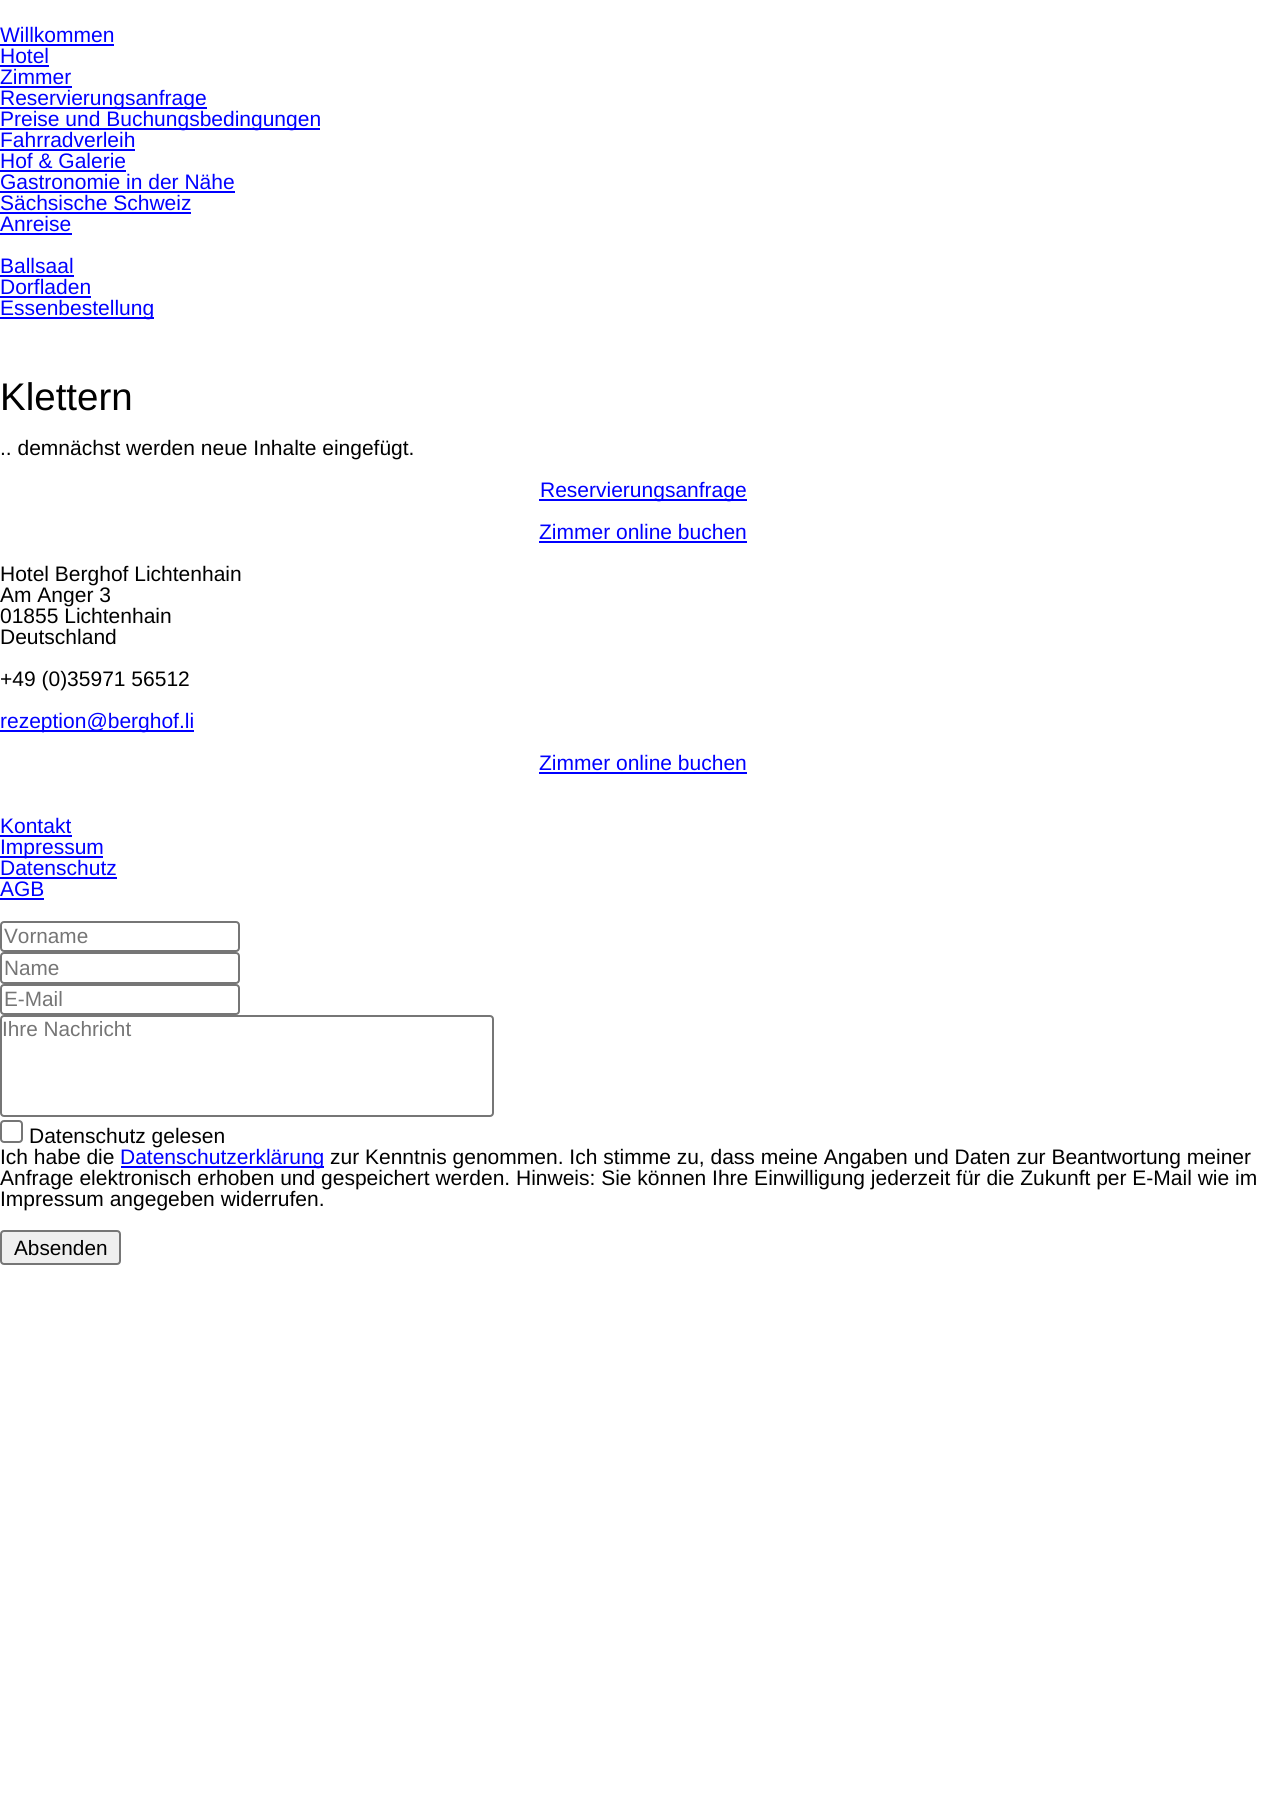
#include <cairo.h>
#include <math.h>
#include <stddef.h>


static void round_rect(cairo_t *cr, double x, double y, double w, double h, double r) {
    cairo_new_sub_path(cr);
    cairo_arc(cr, x + w - r, y + h - r, r, 0, M_PI / 2);
    cairo_arc(cr, x + r, y + h - r, r, M_PI / 2, M_PI);
    cairo_arc(cr, x + r, y + r, r, M_PI, 1.5 * M_PI);
    cairo_arc(cr, x + w - r, y + r, r, 1.5 * M_PI, 2 * M_PI);
    cairo_close_path(cr);
}

int main(void) {
    cairo_surface_t *surface = cairo_image_surface_create(CAIRO_FORMAT_RGB24, 1285, 1810);
    cairo_t *cr = cairo_create(surface);
    cairo_font_options_t *options = cairo_font_options_create();
    cairo_font_options_set_hint_metrics(options, CAIRO_HINT_METRICS_OFF);
    cairo_font_options_set_hint_style(options, CAIRO_HINT_STYLE_NONE);
    cairo_set_font_options(cr, options);
    cairo_set_miter_limit(cr, 4);
    cairo_set_source_rgb(cr, 1, 1, 1);
    cairo_paint(cr);
    cairo_select_font_face(cr, "Liberation Sans", CAIRO_FONT_SLANT_NORMAL, CAIRO_FONT_WEIGHT_NORMAL);
    cairo_set_font_size(cr, 21);
    cairo_set_source_rgb(cr, 0, 0, 1);
    cairo_move_to(cr, 0, 42);
    cairo_show_text(cr, "Willkommen");
    cairo_rectangle(cr, 0, 44, 114, 2);
    cairo_fill(cr);
    cairo_move_to(cr, 0, 63);
    cairo_show_text(cr, "Hotel");
    cairo_rectangle(cr, 0, 65, 49, 2);
    cairo_fill(cr);
    cairo_move_to(cr, 0, 84);
    cairo_show_text(cr, "Zimmer");
    cairo_rectangle(cr, 0, 86, 72, 2);
    cairo_fill(cr);
    cairo_rectangle(cr, 0, 107, 207, 2);
    cairo_fill(cr);
    cairo_move_to(cr, 0, 105);
    cairo_show_text(cr, "Reservierungsanfrage");
    cairo_rectangle(cr, 0, 128, 320, 2);
    cairo_fill(cr);
    cairo_move_to(cr, 0, 126);
    cairo_show_text(cr, "Preise und Buchungsbedingungen");
    cairo_move_to(cr, 0, 147);
    cairo_show_text(cr, "Fahrradverleih");
    cairo_rectangle(cr, 0, 149, 135, 2);
    cairo_fill(cr);
    cairo_move_to(cr, 0, 168);
    cairo_show_text(cr, "Hof & Galerie");
    cairo_rectangle(cr, 0, 170, 126, 2);
    cairo_fill(cr);
    cairo_move_to(cr, 0, 189);
    cairo_show_text(cr, "Gastronomie in der Nähe");
    cairo_rectangle(cr, 0, 191, 235, 2);
    cairo_fill(cr);
    cairo_move_to(cr, 0, 210);
    cairo_show_text(cr, "Sächsische Schweiz");
    cairo_rectangle(cr, 0, 212, 191, 2);
    cairo_fill(cr);
    cairo_move_to(cr, 0, 231);
    cairo_show_text(cr, "Anreise");
    cairo_rectangle(cr, 0, 233, 72, 2);
    cairo_fill(cr);
    cairo_move_to(cr, 0, 273);
    cairo_show_text(cr, "Ballsaal");
    cairo_rectangle(cr, 0, 275, 74, 2);
    cairo_fill(cr);
    cairo_move_to(cr, 0, 294);
    cairo_show_text(cr, "Dorfladen");
    cairo_rectangle(cr, 0, 296, 91, 2);
    cairo_fill(cr);
    cairo_rectangle(cr, 0, 317, 154, 2);
    cairo_fill(cr);
    cairo_move_to(cr, 0, 315);
    cairo_show_text(cr, "Essenbestellung");
    cairo_set_font_size(cr, 38.5);
    cairo_set_source_rgb(cr, 0, 0, 0);
    cairo_move_to(cr, 0, 410);
    cairo_show_text(cr, "Klettern");
    cairo_set_font_size(cr, 21);
    cairo_move_to(cr, 0, 455);
    cairo_show_text(cr, ".. demnächst werden neue Inhalte eingefügt.");
    cairo_set_source_rgb(cr, 0, 0, 1);
    cairo_rectangle(cr, 539, 499, 208, 2);
    cairo_fill(cr);
    cairo_move_to(cr, 540, 497);
    cairo_show_text(cr, "Reservierungsanfrage");
    cairo_move_to(cr, 539, 539);
    cairo_show_text(cr, "Zimmer online buchen");
    cairo_rectangle(cr, 539, 541, 208, 2);
    cairo_fill(cr);
    cairo_set_source_rgb(cr, 0, 0, 0);
    cairo_move_to(cr, 0, 581);
    cairo_show_text(cr, "Hotel Berghof Lichtenhain");
    cairo_move_to(cr, 0, 602);
    cairo_show_text(cr, "Am Anger 3");
    cairo_move_to(cr, 0, 623);
    cairo_show_text(cr, "01855 Lichtenhain");
    cairo_move_to(cr, 0, 644);
    cairo_show_text(cr, "Deutschland");
    cairo_move_to(cr, 0, 686);
    cairo_show_text(cr, "+49 (0)35971 56512");
    cairo_set_source_rgb(cr, 0, 0, 1);
    cairo_rectangle(cr, 0, 730, 194, 2);
    cairo_fill(cr);
    cairo_move_to(cr, 0, 728);
    cairo_show_text(cr, "rezeption@berghof.li");
    cairo_move_to(cr, 539, 770);
    cairo_show_text(cr, "Zimmer online buchen");
    cairo_rectangle(cr, 539, 772, 208, 2);
    cairo_fill(cr);
    cairo_move_to(cr, 0, 833);
    cairo_show_text(cr, "Kontakt");
    cairo_rectangle(cr, 0, 835, 72, 2);
    cairo_fill(cr);
    cairo_rectangle(cr, 0, 856, 103, 2);
    cairo_fill(cr);
    cairo_move_to(cr, 0, 854);
    cairo_show_text(cr, "Impressum");
    cairo_move_to(cr, 0, 875);
    cairo_show_text(cr, "Datenschutz");
    cairo_rectangle(cr, 0, 877, 117, 2);
    cairo_fill(cr);
    cairo_move_to(cr, 0, 896);
    cairo_show_text(cr, "AGB");
    cairo_rectangle(cr, 0, 898, 44, 2);
    cairo_fill(cr);
    round_rect(cr, 1, 922, 238, 29, 3);
    cairo_set_source_rgb(cr, 0.463, 0.463, 0.463);
    cairo_stroke(cr);
    cairo_set_font_size(cr, 20.75);
    cairo_set_source_rgb(cr, 0.459, 0.459, 0.459);
    cairo_move_to(cr, 4, 943);
    cairo_show_text(cr, "Vorname");
    round_rect(cr, 1, 953, 238, 30, 3);
    cairo_set_source_rgb(cr, 0.463, 0.463, 0.463);
    cairo_stroke(cr);
    cairo_set_source_rgb(cr, 0.459, 0.459, 0.459);
    cairo_move_to(cr, 4, 975);
    cairo_show_text(cr, "Name");
    round_rect(cr, 1, 985, 238, 29, 3);
    cairo_set_source_rgb(cr, 0.463, 0.463, 0.463);
    cairo_stroke(cr);
    cairo_set_source_rgb(cr, 0.459, 0.459, 0.459);
    cairo_move_to(cr, 4, 1006);
    cairo_show_text(cr, "E-Mail");
    round_rect(cr, 1, 1016, 492, 100, 3);
    cairo_set_source_rgb(cr, 0.463, 0.463, 0.463);
    cairo_stroke(cr);
    cairo_set_source_rgb(cr, 0.459, 0.459, 0.459);
    cairo_move_to(cr, 2, 1036);
    cairo_show_text(cr, "Ihre Nachricht");
    round_rect(cr, 1, 1121, 21, 21, 3);
    cairo_set_source_rgb(cr, 0.463, 0.463, 0.463);
    cairo_stroke(cr);
    cairo_set_font_size(cr, 21);
    cairo_set_source_rgb(cr, 0, 0, 0);
    cairo_move_to(cr, 29, 1143);
    cairo_show_text(cr, "Datenschutz gelesen");
    cairo_move_to(cr, 0, 1164);
    cairo_show_text(cr, "Ich habe die");
    cairo_set_source_rgb(cr, 0, 0, 1);
    cairo_rectangle(cr, 121, 1166, 203, 2);
    cairo_fill(cr);
    cairo_move_to(cr, 120, 1164);
    cairo_show_text(cr, "Datenschutzerklärung");
    cairo_set_source_rgb(cr, 0, 0, 0);
    cairo_move_to(cr, 330, 1164);
    cairo_show_text(cr, "zur Kenntnis genommen. Ich stimme zu, dass meine Angaben und Daten zur Beantwortung meiner");
    cairo_move_to(cr, 0, 1185);
    cairo_show_text(cr, "Anfrage elektronisch erhoben und gespeichert werden. Hinweis: Sie können Ihre Einwilligung jederzeit für die Zukunft per E-Mail wie im");
    cairo_move_to(cr, 0, 1206);
    cairo_show_text(cr, "Impressum angegeben widerrufen.");
    cairo_set_source_rgb(cr, 0.937, 0.937, 0.937);
    round_rect(cr, 1, 1231, 119, 33, 3);
    cairo_fill_preserve(cr);
    cairo_set_source_rgb(cr, 0.463, 0.463, 0.463);
    cairo_stroke(cr);
    cairo_set_font_size(cr, 20.75);
    cairo_set_source_rgb(cr, 0, 0, 0);
    cairo_move_to(cr, 14, 1255);
    cairo_show_text(cr, "Absenden");
    cairo_surface_write_to_png(surface, "page.png");
    cairo_font_options_destroy(options);
    cairo_destroy(cr);
    cairo_surface_destroy(surface);
    return 0;
}
